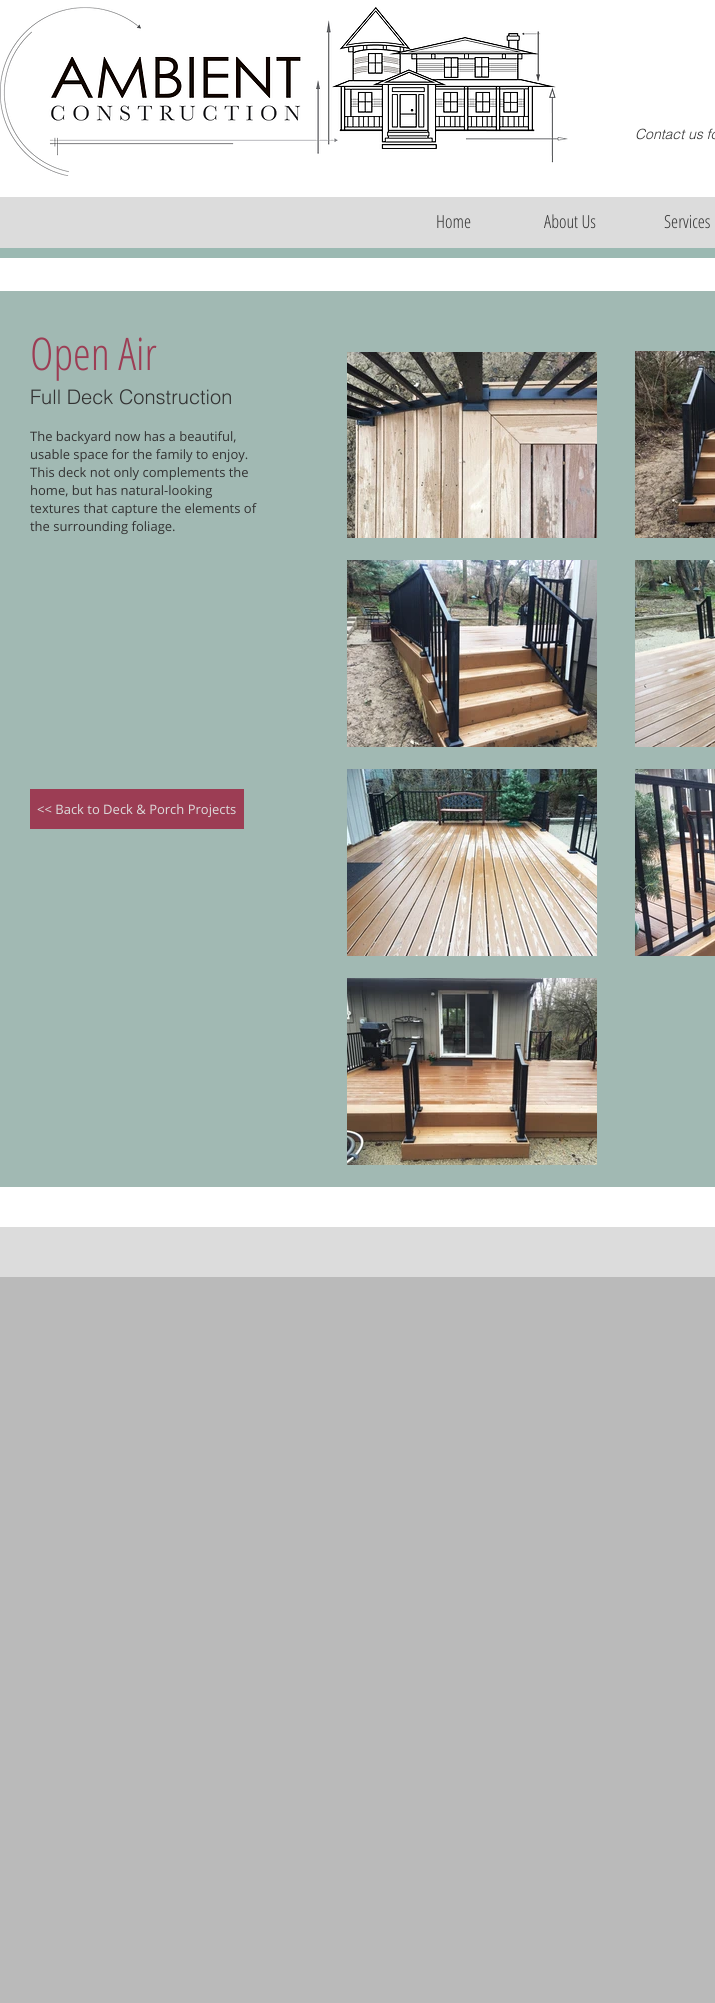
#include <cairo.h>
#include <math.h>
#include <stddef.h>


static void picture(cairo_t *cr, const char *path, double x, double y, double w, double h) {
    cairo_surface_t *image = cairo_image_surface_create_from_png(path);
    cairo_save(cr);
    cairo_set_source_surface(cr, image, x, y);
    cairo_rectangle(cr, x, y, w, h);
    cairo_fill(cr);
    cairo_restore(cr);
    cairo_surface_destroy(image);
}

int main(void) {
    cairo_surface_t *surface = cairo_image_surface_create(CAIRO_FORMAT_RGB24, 715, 2003);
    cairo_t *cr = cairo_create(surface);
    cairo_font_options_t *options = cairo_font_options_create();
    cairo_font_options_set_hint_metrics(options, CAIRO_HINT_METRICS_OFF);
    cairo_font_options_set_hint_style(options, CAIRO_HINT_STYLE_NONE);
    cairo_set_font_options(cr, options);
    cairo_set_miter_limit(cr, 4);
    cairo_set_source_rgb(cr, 0.729, 0.729, 0.729);
    cairo_paint(cr);
    cairo_set_source_rgb(cr, 1, 1, 1);
    cairo_rectangle(cr, 0, 0, 715, 197);
    cairo_fill(cr);
    cairo_set_source_rgb(cr, 0.608, 0.725, 0.698);
    cairo_rectangle(cr, 0, 248, 715, 10);
    cairo_fill(cr);
    picture(cr, "img1.png", 0, 7, 568, 169);
    cairo_select_font_face(cr, "helvetica Light", CAIRO_FONT_SLANT_ITALIC, CAIRO_FONT_WEIGHT_NORMAL);
    cairo_set_font_size(cr, 14);
    cairo_set_source_rgb(cr, 0.196, 0.196, 0.196);
    cairo_move_to(cr, 635, 139);
    cairo_show_text(cr, "Contact us fo");
    cairo_set_source_rgb(cr, 0.863, 0.863, 0.863);
    cairo_rectangle(cr, 0, 197, 715, 51);
    cairo_fill(cr);
    cairo_select_font_face(cr, "Open Sans Condensed Light", CAIRO_FONT_SLANT_NORMAL, CAIRO_FONT_WEIGHT_NORMAL);
    cairo_set_font_size(cr, 18);
    cairo_set_source_rgb(cr, 0.196, 0.196, 0.196);
    cairo_move_to(cr, 436, 228);
    cairo_show_text(cr, "Home");
    cairo_move_to(cr, 544, 228);
    cairo_show_text(cr, "About Us");
    cairo_move_to(cr, 664, 228);
    cairo_show_text(cr, "Services");
    cairo_set_source_rgb(cr, 1, 1, 1);
    cairo_rectangle(cr, 0, 258, 715, 33);
    cairo_fill(cr);
    cairo_set_source_rgb(cr, 0.631, 0.725, 0.702);
    cairo_rectangle(cr, 0, 291, 715, 896);
    cairo_fill(cr);
    cairo_set_font_size(cr, 45);
    cairo_set_source_rgb(cr, 0.612, 0.239, 0.329);
    cairo_move_to(cr, 30, 370);
    cairo_show_text(cr, "Open Air");
    cairo_select_font_face(cr, "helvetica Light", CAIRO_FONT_SLANT_NORMAL, CAIRO_FONT_WEIGHT_NORMAL);
    cairo_set_font_size(cr, 20);
    cairo_set_source_rgb(cr, 0.196, 0.196, 0.196);
    cairo_move_to(cr, 30, 404);
    cairo_show_text(cr, "Full Deck Construction");
    picture(cr, "img2.png", 347, 352, 250, 186);
    picture(cr, "img3.png", 635, 351, 80, 187);
    picture(cr, "img4.png", 347, 560, 250, 187);
    picture(cr, "img5.png", 635, 560, 80, 187);
    picture(cr, "img6.png", 347, 769, 250, 187);
    picture(cr, "img7.png", 635, 769, 80, 187);
    picture(cr, "img8.png", 347, 978, 250, 187);
    cairo_select_font_face(cr, "Open Sans", CAIRO_FONT_SLANT_NORMAL, CAIRO_FONT_WEIGHT_NORMAL);
    cairo_set_font_size(cr, 13);
    cairo_move_to(cr, 30, 441);
    cairo_show_text(cr, "The backyard now has a beautiful,");
    cairo_move_to(cr, 30, 459);
    cairo_show_text(cr, "usable space for the family to enjoy.");
    cairo_move_to(cr, 30, 477);
    cairo_show_text(cr, "This deck not only complements the");
    cairo_move_to(cr, 30, 495);
    cairo_show_text(cr, "home, but has natural-looking");
    cairo_move_to(cr, 30, 513);
    cairo_show_text(cr, "textures that capture the elements of");
    cairo_move_to(cr, 30, 531);
    cairo_show_text(cr, "the surrounding foliage.");
    cairo_set_source_rgb(cr, 0.612, 0.239, 0.329);
    cairo_rectangle(cr, 30, 789, 214, 40);
    cairo_fill(cr);
    cairo_set_source_rgb(cr, 0.863, 0.863, 0.863);
    cairo_move_to(cr, 37, 814);
    cairo_show_text(cr, "<< Back to Deck & Porch Projects");
    cairo_set_source_rgb(cr, 1, 1, 1);
    cairo_rectangle(cr, 0, 1187, 715, 40);
    cairo_fill(cr);
    cairo_set_source_rgb(cr, 0.863, 0.863, 0.863);
    cairo_rectangle(cr, 0, 1227, 715, 50);
    cairo_fill(cr);
    cairo_surface_write_to_png(surface, "page.png");
    cairo_font_options_destroy(options);
    cairo_destroy(cr);
    cairo_surface_destroy(surface);
    return 0;
}
